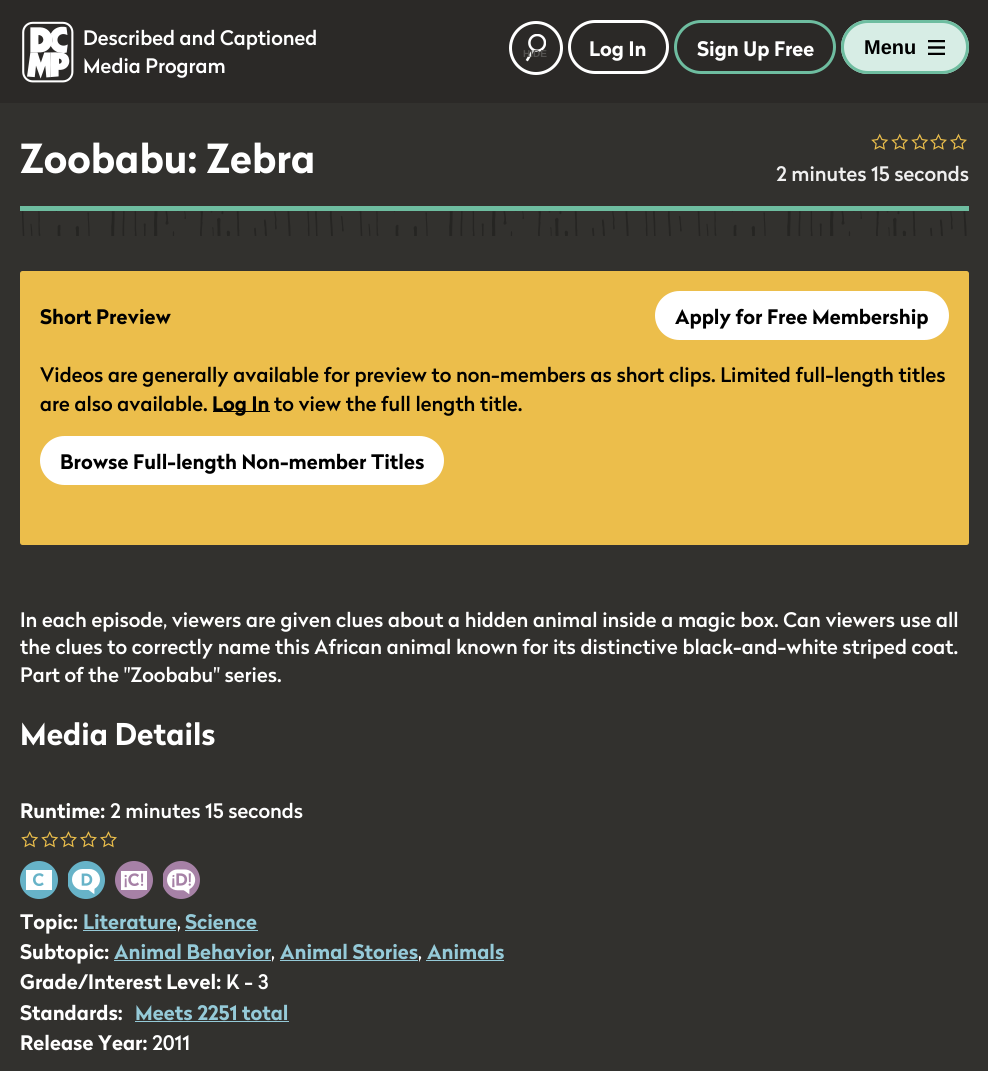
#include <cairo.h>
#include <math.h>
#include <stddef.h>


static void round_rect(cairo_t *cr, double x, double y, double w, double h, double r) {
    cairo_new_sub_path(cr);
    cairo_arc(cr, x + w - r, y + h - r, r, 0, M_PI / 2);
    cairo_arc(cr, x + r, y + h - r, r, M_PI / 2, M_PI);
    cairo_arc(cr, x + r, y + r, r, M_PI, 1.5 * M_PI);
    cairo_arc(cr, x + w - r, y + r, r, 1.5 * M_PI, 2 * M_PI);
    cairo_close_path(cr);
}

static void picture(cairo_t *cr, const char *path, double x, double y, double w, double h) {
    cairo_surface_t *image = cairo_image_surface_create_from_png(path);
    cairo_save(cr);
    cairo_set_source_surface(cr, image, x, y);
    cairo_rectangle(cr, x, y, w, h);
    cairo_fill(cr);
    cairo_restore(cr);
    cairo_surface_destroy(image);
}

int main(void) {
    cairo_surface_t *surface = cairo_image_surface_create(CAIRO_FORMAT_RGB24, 988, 1071);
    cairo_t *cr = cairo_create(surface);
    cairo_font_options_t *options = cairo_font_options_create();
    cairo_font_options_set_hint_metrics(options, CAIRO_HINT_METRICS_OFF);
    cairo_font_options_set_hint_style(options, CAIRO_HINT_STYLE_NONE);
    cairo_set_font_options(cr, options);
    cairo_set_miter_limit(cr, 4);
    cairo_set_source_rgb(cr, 0.196, 0.192, 0.18);
    cairo_paint(cr);
    cairo_set_source_rgb(cr, 0.169, 0.161, 0.153);
    cairo_rectangle(cr, 0, 0, 988, 103);
    cairo_fill(cr);
    picture(cr, "img1.png", 22, 21, 52, 62);
    cairo_select_font_face(cr, "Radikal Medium", CAIRO_FONT_SLANT_NORMAL, CAIRO_FONT_WEIGHT_NORMAL);
    cairo_set_font_size(cr, 20);
    cairo_set_source_rgb(cr, 1, 1, 1);
    cairo_move_to(cr, 83, 45);
    cairo_show_text(cr, "Described and Captioned");
    cairo_move_to(cr, 83, 73);
    cairo_show_text(cr, "Media Program");
    picture(cr, "img2.png", 525, 34, 21, 28);
    cairo_arc(cr, 536, 48, 25.5, 0, 2 * M_PI);
    cairo_set_line_width(cr, 3);
    cairo_stroke(cr);
    cairo_select_font_face(cr, "Liberation Sans", CAIRO_FONT_SLANT_NORMAL, CAIRO_FONT_WEIGHT_BOLD);
    cairo_set_font_size(cr, 10);
    cairo_set_source_rgb(cr, 0.329, 0.325, 0.318);
    cairo_move_to(cr, 523, 57);
    cairo_show_text(cr, "HIDE");
    round_rect(cr, 569.5, 21.5, 98, 51, 25.5);
    cairo_set_source_rgb(cr, 1, 1, 1);
    cairo_stroke(cr);
    cairo_select_font_face(cr, "Radikal", CAIRO_FONT_SLANT_NORMAL, CAIRO_FONT_WEIGHT_BOLD);
    cairo_set_font_size(cr, 20);
    cairo_move_to(cr, 589, 56);
    cairo_show_text(cr, "Log In");
    round_rect(cr, 675.5, 21.5, 159, 51, 25.5);
    cairo_set_source_rgb(cr, 0.431, 0.741, 0.627);
    cairo_stroke(cr);
    cairo_set_source_rgb(cr, 1, 1, 1);
    cairo_move_to(cr, 697, 56);
    cairo_show_text(cr, "Sign Up Free");
    cairo_set_source_rgb(cr, 0.843, 0.929, 0.898);
    round_rect(cr, 841, 20, 128, 54, 27);
    cairo_fill(cr);
    cairo_save(cr);
    cairo_rectangle(cr, 928, 40, 17, 15);
    cairo_clip(cr);
    cairo_new_path(cr);
    cairo_move_to(cr, 928, 41);
    cairo_line_to(cr, 945, 41);
    cairo_move_to(cr, 928, 47.5);
    cairo_line_to(cr, 945, 47.5);
    cairo_move_to(cr, 928, 54);
    cairo_line_to(cr, 945, 54);
    cairo_set_source_rgb(cr, 0, 0, 0);
    cairo_set_line_width(cr, 2.5);
    cairo_stroke(cr);
    cairo_restore(cr);
    round_rect(cr, 842.5, 21.5, 125, 51, 25.5);
    cairo_set_source_rgb(cr, 0.431, 0.741, 0.627);
    cairo_stroke(cr);
    cairo_select_font_face(cr, "Liberation Sans", CAIRO_FONT_SLANT_NORMAL, CAIRO_FONT_WEIGHT_BOLD);
    cairo_set_source_rgb(cr, 0, 0, 0);
    cairo_move_to(cr, 864, 54);
    cairo_show_text(cr, "Menu");
    cairo_set_source_rgb(cr, 0.431, 0.741, 0.627);
    cairo_rectangle(cr, 20, 206, 949, 5);
    cairo_fill(cr);
    cairo_select_font_face(cr, "Radikal", CAIRO_FONT_SLANT_NORMAL, CAIRO_FONT_WEIGHT_BOLD);
    cairo_set_font_size(cr, 40);
    cairo_set_source_rgb(cr, 1, 1, 1);
    cairo_move_to(cr, 20, 173);
    cairo_show_text(cr, "Zoobabu: Zebra");
    picture(cr, "img3.png", 871, 133, 18, 17);
    picture(cr, "img3.png", 891, 133, 18, 17);
    picture(cr, "img3.png", 911, 133, 18, 17);
    picture(cr, "img4.png", 930, 133, 17, 17);
    picture(cr, "img4.png", 950, 133, 17, 17);
    cairo_select_font_face(cr, "Radikal Medium", CAIRO_FONT_SLANT_NORMAL, CAIRO_FONT_WEIGHT_NORMAL);
    cairo_set_font_size(cr, 20);
    cairo_set_source_rgb(cr, 0.937, 0.937, 0.937);
    cairo_move_to(cr, 776, 181);
    cairo_show_text(cr, "2 minutes 15 seconds");
    picture(cr, "img5.png", 22, 211, 945, 25);
    cairo_set_source_rgb(cr, 0.922, 0.745, 0.294);
    round_rect(cr, 20, 271, 949, 274, 2.5);
    cairo_fill(cr);
    cairo_select_font_face(cr, "Radikal", CAIRO_FONT_SLANT_NORMAL, CAIRO_FONT_WEIGHT_BOLD);
    cairo_set_source_rgb(cr, 0, 0, 0);
    cairo_move_to(cr, 40, 324);
    cairo_show_text(cr, "Short Preview");
    cairo_set_source_rgb(cr, 1, 1, 1);
    round_rect(cr, 655, 291, 294, 49, 24.5);
    cairo_fill(cr);
    cairo_set_source_rgb(cr, 0, 0, 0);
    cairo_move_to(cr, 675, 324);
    cairo_show_text(cr, "Apply for Free Membership");
    cairo_select_font_face(cr, "Radikal Medium", CAIRO_FONT_SLANT_NORMAL, CAIRO_FONT_WEIGHT_NORMAL);
    cairo_move_to(cr, 40, 382);
    cairo_show_text(cr, "Videos are generally available for preview to non-members as short clips. Limited full-length titles");
    cairo_move_to(cr, 40, 411);
    cairo_show_text(cr, "are also available.");
    cairo_set_source_rgb(cr, 0.004, 0.004, 0.004);
    cairo_rectangle(cr, 213, 411, 57, 1);
    cairo_fill(cr);
    cairo_select_font_face(cr, "Radikal", CAIRO_FONT_SLANT_NORMAL, CAIRO_FONT_WEIGHT_BOLD);
    cairo_set_source_rgb(cr, 0, 0, 0);
    cairo_move_to(cr, 212, 411);
    cairo_show_text(cr, "Log In");
    cairo_select_font_face(cr, "Radikal Medium", CAIRO_FONT_SLANT_NORMAL, CAIRO_FONT_WEIGHT_NORMAL);
    cairo_move_to(cr, 274, 411);
    cairo_show_text(cr, "to view the full length title.");
    cairo_set_source_rgb(cr, 1, 1, 1);
    round_rect(cr, 40, 436, 404, 49, 24.5);
    cairo_fill(cr);
    cairo_select_font_face(cr, "Radikal", CAIRO_FONT_SLANT_NORMAL, CAIRO_FONT_WEIGHT_BOLD);
    cairo_set_source_rgb(cr, 0, 0, 0);
    cairo_move_to(cr, 60, 469);
    cairo_show_text(cr, "Browse Full-length Non-member Titles");
    cairo_select_font_face(cr, "Radikal Medium", CAIRO_FONT_SLANT_NORMAL, CAIRO_FONT_WEIGHT_NORMAL);
    cairo_set_source_rgb(cr, 1, 1, 1);
    cairo_move_to(cr, 20, 627);
    cairo_show_text(cr, "In each episode, viewers are given clues about a hidden animal inside a magic box. Can viewers use all");
    cairo_move_to(cr, 20, 654);
    cairo_show_text(cr, "the clues to correctly name this African animal known for its distinctive black-and-white striped coat.");
    cairo_move_to(cr, 20, 682);
    cairo_show_text(cr, "Part of the \"Zoobabu\" series.");
    cairo_select_font_face(cr, "Radikal", CAIRO_FONT_SLANT_NORMAL, CAIRO_FONT_WEIGHT_BOLD);
    cairo_set_font_size(cr, 30);
    cairo_move_to(cr, 20, 745);
    cairo_show_text(cr, "Media Details");
    cairo_set_font_size(cr, 20);
    cairo_move_to(cr, 20, 818);
    cairo_show_text(cr, "Runtime:");
    cairo_select_font_face(cr, "Radikal Medium", CAIRO_FONT_SLANT_NORMAL, CAIRO_FONT_WEIGHT_NORMAL);
    cairo_move_to(cr, 110, 818);
    cairo_show_text(cr, "2 minutes 15 seconds");
    picture(cr, "img6.png", 21, 831, 18, 17);
    picture(cr, "img6.png", 41, 831, 18, 17);
    picture(cr, "img7.png", 60, 831, 17, 17);
    picture(cr, "img7.png", 80, 831, 17, 17);
    picture(cr, "img7.png", 100, 831, 17, 17);
    picture(cr, "img8.png", 20, 861, 38, 38);
    picture(cr, "img9.png", 68, 861, 37, 38);
    picture(cr, "img10.png", 115, 861, 38, 38);
    picture(cr, "img11.png", 163, 861, 37, 38);
    cairo_select_font_face(cr, "Radikal", CAIRO_FONT_SLANT_NORMAL, CAIRO_FONT_WEIGHT_BOLD);
    cairo_move_to(cr, 20, 929);
    cairo_show_text(cr, "Topic:");
    cairo_set_source_rgb(cr, 0.584, 0.792, 0.847);
    cairo_move_to(cr, 83, 929);
    cairo_show_text(cr, "Literature");
    cairo_rectangle(cr, 83, 930, 93, 1);
    cairo_fill(cr);
    cairo_select_font_face(cr, "Radikal Medium", CAIRO_FONT_SLANT_NORMAL, CAIRO_FONT_WEIGHT_NORMAL);
    cairo_set_source_rgb(cr, 1, 1, 1);
    cairo_move_to(cr, 177, 929);
    cairo_show_text(cr, ",");
    cairo_select_font_face(cr, "Radikal", CAIRO_FONT_SLANT_NORMAL, CAIRO_FONT_WEIGHT_BOLD);
    cairo_set_source_rgb(cr, 0.584, 0.792, 0.847);
    cairo_move_to(cr, 185, 929);
    cairo_show_text(cr, "Science");
    cairo_rectangle(cr, 185, 930, 73, 1);
    cairo_fill(cr);
    cairo_set_source_rgb(cr, 1, 1, 1);
    cairo_move_to(cr, 20, 959);
    cairo_show_text(cr, "Subtopic:");
    cairo_set_source_rgb(cr, 0.584, 0.792, 0.847);
    cairo_move_to(cr, 114, 959);
    cairo_show_text(cr, "Animal Behavior");
    cairo_rectangle(cr, 114, 960, 157, 1);
    cairo_fill(cr);
    cairo_select_font_face(cr, "Radikal Medium", CAIRO_FONT_SLANT_NORMAL, CAIRO_FONT_WEIGHT_NORMAL);
    cairo_set_source_rgb(cr, 1, 1, 1);
    cairo_move_to(cr, 271, 959);
    cairo_show_text(cr, ",");
    cairo_select_font_face(cr, "Radikal", CAIRO_FONT_SLANT_NORMAL, CAIRO_FONT_WEIGHT_BOLD);
    cairo_set_source_rgb(cr, 0.584, 0.792, 0.847);
    cairo_move_to(cr, 280, 959);
    cairo_show_text(cr, "Animal Stories");
    cairo_rectangle(cr, 280, 960, 138, 1);
    cairo_fill(cr);
    cairo_select_font_face(cr, "Radikal Medium", CAIRO_FONT_SLANT_NORMAL, CAIRO_FONT_WEIGHT_NORMAL);
    cairo_set_source_rgb(cr, 1, 1, 1);
    cairo_move_to(cr, 418, 959);
    cairo_show_text(cr, ",");
    cairo_select_font_face(cr, "Radikal", CAIRO_FONT_SLANT_NORMAL, CAIRO_FONT_WEIGHT_BOLD);
    cairo_set_source_rgb(cr, 0.584, 0.792, 0.847);
    cairo_move_to(cr, 427, 959);
    cairo_show_text(cr, "Animals");
    cairo_rectangle(cr, 426, 960, 78, 1);
    cairo_fill(cr);
    cairo_set_source_rgb(cr, 1, 1, 1);
    cairo_move_to(cr, 20, 989);
    cairo_show_text(cr, "Grade/Interest Level:");
    cairo_select_font_face(cr, "Radikal Medium", CAIRO_FONT_SLANT_NORMAL, CAIRO_FONT_WEIGHT_NORMAL);
    cairo_move_to(cr, 226, 989);
    cairo_show_text(cr, "K - 3");
    cairo_select_font_face(cr, "Radikal", CAIRO_FONT_SLANT_NORMAL, CAIRO_FONT_WEIGHT_BOLD);
    cairo_move_to(cr, 20, 1020);
    cairo_show_text(cr, "Standards:");
    cairo_set_source_rgb(cr, 0.584, 0.792, 0.847);
    cairo_move_to(cr, 135, 1020);
    cairo_show_text(cr, "Meets 2251 total");
    cairo_rectangle(cr, 135, 1021, 154, 1);
    cairo_fill(cr);
    cairo_set_source_rgb(cr, 1, 1, 1);
    cairo_move_to(cr, 20, 1050);
    cairo_show_text(cr, "Release Year:");
    cairo_select_font_face(cr, "Radikal Medium", CAIRO_FONT_SLANT_NORMAL, CAIRO_FONT_WEIGHT_NORMAL);
    cairo_move_to(cr, 152, 1050);
    cairo_show_text(cr, "2011");
    cairo_surface_write_to_png(surface, "page.png");
    cairo_font_options_destroy(options);
    cairo_destroy(cr);
    cairo_surface_destroy(surface);
    return 0;
}
